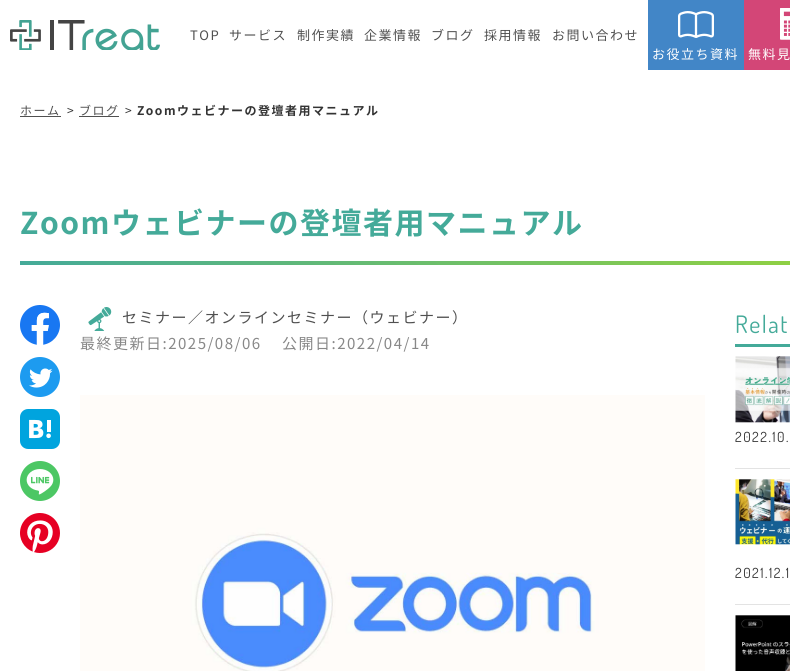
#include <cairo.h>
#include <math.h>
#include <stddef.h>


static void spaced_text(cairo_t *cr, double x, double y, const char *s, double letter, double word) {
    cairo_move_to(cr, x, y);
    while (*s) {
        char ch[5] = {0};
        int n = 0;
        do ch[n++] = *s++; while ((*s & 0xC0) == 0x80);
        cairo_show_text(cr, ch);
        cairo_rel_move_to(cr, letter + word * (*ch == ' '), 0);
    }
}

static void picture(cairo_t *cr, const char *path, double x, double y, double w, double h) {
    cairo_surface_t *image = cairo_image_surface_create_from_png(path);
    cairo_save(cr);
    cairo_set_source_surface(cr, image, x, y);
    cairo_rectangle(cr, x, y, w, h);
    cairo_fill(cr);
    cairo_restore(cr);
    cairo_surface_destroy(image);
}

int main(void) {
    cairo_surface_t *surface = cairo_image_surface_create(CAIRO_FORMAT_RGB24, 790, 671);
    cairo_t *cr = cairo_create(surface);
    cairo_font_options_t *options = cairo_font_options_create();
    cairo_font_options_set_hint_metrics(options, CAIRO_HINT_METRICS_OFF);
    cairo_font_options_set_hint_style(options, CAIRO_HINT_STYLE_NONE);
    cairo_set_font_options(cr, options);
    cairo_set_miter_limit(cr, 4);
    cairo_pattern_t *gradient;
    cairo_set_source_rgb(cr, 1, 1, 1);
    cairo_paint(cr);
    picture(cr, "img1.png", 10, 20, 150, 30);
    cairo_select_font_face(cr, "Noto Sans JP", CAIRO_FONT_SLANT_NORMAL, CAIRO_FONT_WEIGHT_NORMAL);
    cairo_set_font_size(cr, 13);
    cairo_set_source_rgb(cr, 0.314, 0.314, 0.314);
    spaced_text(cr, 190, 40, "TOP", 1.5, 0);
    spaced_text(cr, 229, 40, "サービス", 1.5, 0);
    spaced_text(cr, 297, 40, "制作実績", 1.5, 0);
    spaced_text(cr, 364, 40, "企業情報", 1.5, 0);
    spaced_text(cr, 431, 40, "ブログ", 1.5, 0);
    spaced_text(cr, 484, 40, "採用情報", 1.5, 0);
    spaced_text(cr, 552, 40, "お問い合わせ", 1.5, 0);
    cairo_set_source_rgb(cr, 0.259, 0.525, 0.78);
    cairo_rectangle(cr, 648, 0, 96, 70);
    cairo_fill(cr);
    picture(cr, "img2.png", 678, 11, 36, 27);
    cairo_set_source_rgb(cr, 1, 1, 1);
    spaced_text(cr, 652, 59, "お役立ち資料", 1.5, 0);
    cairo_set_source_rgb(cr, 0.827, 0.275, 0.467);
    cairo_rectangle(cr, 744, 0, 46, 70);
    cairo_fill(cr);
    picture(cr, "img3.png", 780, 8, 10, 32);
    cairo_set_source_rgb(cr, 1, 1, 1);
    spaced_text(cr, 748, 59, "無料見", 1.5, 0);
    cairo_set_font_size(cr, 12);
    cairo_set_source_rgb(cr, 0.314, 0.314, 0.314);
    spaced_text(cr, 20, 115, "ホーム", 1.5, 0);
    cairo_rectangle(cr, 20, 116, 41, 1);
    cairo_fill(cr);
    cairo_set_source_rgb(cr, 0.2, 0.2, 0.2);
    spaced_text(cr, 67, 115, ">", 1.5, 0);
    cairo_set_source_rgb(cr, 0.314, 0.314, 0.314);
    spaced_text(cr, 79, 115, "ブログ", 1.5, 0);
    cairo_rectangle(cr, 79, 116, 40, 1);
    cairo_fill(cr);
    cairo_set_source_rgb(cr, 0.2, 0.2, 0.2);
    spaced_text(cr, 125, 115, ">", 1.5, 0);
    cairo_select_font_face(cr, "Noto Sans JP", CAIRO_FONT_SLANT_NORMAL, CAIRO_FONT_WEIGHT_BOLD);
    spaced_text(cr, 137, 115, "Zoomウェビナーの登壇者用マニュアル", 1.5, 0);
    cairo_set_font_size(cr, 30);
    cairo_set_source_rgb(cr, 0.267, 0.667, 0.6);
    spaced_text(cr, 20, 234, "Zoomウェビナーの登壇者用マニュアル", 1.5, 0);
    gradient = cairo_pattern_create_linear(269, 514, 771, 12);
    cairo_pattern_add_color_stop_rgba(gradient, 0, 0.267, 0.667, 0.6, 1);
    cairo_pattern_add_color_stop_rgba(gradient, 1, 0.647, 0.859, 0.165, 1);
    cairo_set_source(cr, gradient);
    cairo_pattern_destroy(gradient);
    cairo_rectangle(cr, 20, 261, 770, 4);
    cairo_fill(cr);
    picture(cr, "img4.png", 20, 305, 40, 40);
    picture(cr, "img5.png", 20, 357, 40, 40);
    picture(cr, "img6.png", 20, 409, 40, 40);
    picture(cr, "img7.png", 20, 461, 40, 40);
    picture(cr, "img8.png", 20, 513, 40, 40);
    picture(cr, "img9.png", 88, 307, 24, 24);
    cairo_select_font_face(cr, "Noto Sans JP", CAIRO_FONT_SLANT_NORMAL, CAIRO_FONT_WEIGHT_NORMAL);
    cairo_set_font_size(cr, 15);
    cairo_set_source_rgb(cr, 0.314, 0.314, 0.314);
    spaced_text(cr, 122, 323, "セミナー／オンラインセミナー（ウェビナー）", 1.5, 0);
    cairo_set_source_rgb(cr, 0.533, 0.533, 0.533);
    spaced_text(cr, 80, 349, "最終更新日:2025/08/06", 1.5, 0);
    spaced_text(cr, 282, 349, "公開日:2022/04/14", 1.5, 0);
    picture(cr, "img10.png", 80, 395, 625, 276);
    cairo_select_font_face(cr, "Dosis", CAIRO_FONT_SLANT_NORMAL, CAIRO_FONT_WEIGHT_NORMAL);
    cairo_set_font_size(cr, 24);
    cairo_set_source_rgb(cr, 0.267, 0.667, 0.6);
    spaced_text(cr, 735, 333, "Relat", 1.5, 0);
    cairo_rectangle(cr, 735, 344, 55, 3);
    cairo_fill(cr);
    cairo_set_source_rgb(cr, 0.89, 0.89, 0.89);
    cairo_rectangle(cr, 735, 468, 55, 1);
    cairo_fill(cr);
    picture(cr, "img11.png", 735, 356, 55, 67);
    cairo_set_font_size(cr, 14);
    cairo_set_source_rgb(cr, 0.2, 0.2, 0.2);
    spaced_text(cr, 735, 442, "2022.10.", 1.5, 0);
    cairo_set_source_rgb(cr, 0.89, 0.89, 0.89);
    cairo_rectangle(cr, 735, 604, 55, 1);
    cairo_fill(cr);
    picture(cr, "img12.png", 735, 479, 55, 66);
    cairo_set_source_rgb(cr, 0.2, 0.2, 0.2);
    spaced_text(cr, 735, 578, "2021.12.1", 1.5, 0);
    picture(cr, "img13.png", 735, 615, 55, 56);
    cairo_surface_write_to_png(surface, "page.png");
    cairo_font_options_destroy(options);
    cairo_destroy(cr);
    cairo_surface_destroy(surface);
    return 0;
}
